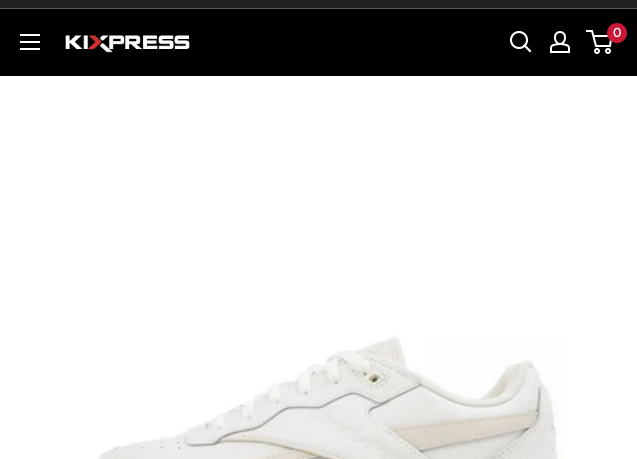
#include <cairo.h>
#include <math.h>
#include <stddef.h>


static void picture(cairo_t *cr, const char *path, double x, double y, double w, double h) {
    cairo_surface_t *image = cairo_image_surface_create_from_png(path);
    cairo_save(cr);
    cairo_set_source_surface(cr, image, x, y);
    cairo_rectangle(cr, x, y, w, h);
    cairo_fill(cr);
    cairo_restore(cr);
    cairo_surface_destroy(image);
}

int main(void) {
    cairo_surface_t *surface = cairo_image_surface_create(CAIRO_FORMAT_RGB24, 637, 459);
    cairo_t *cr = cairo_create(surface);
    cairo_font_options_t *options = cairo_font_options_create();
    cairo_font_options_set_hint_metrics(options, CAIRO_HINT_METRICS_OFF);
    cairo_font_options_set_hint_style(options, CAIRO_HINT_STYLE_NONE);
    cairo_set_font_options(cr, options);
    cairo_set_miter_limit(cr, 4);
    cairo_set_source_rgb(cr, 0.133, 0.125, 0.129);
    cairo_paint(cr);
    cairo_set_source_rgb(cr, 0.365, 0.361, 0.365);
    cairo_rectangle(cr, 0, 8, 637, 1);
    cairo_fill(cr);
    cairo_set_source_rgb(cr, 0, 0, 0);
    cairo_rectangle(cr, 0, 9, 637, 67);
    cairo_fill(cr);
    cairo_new_path(cr);
    cairo_move_to(cr, 530, 51);
    cairo_line_to(cr, 524.5, 45.5);
    cairo_set_source_rgb(cr, 1, 1, 1);
    cairo_set_line_width(cr, 2.1);
    cairo_set_line_cap(cr, CAIRO_LINE_CAP_SQUARE);
    cairo_stroke(cr);
    cairo_arc(cr, 519, 40, 8, 0, 2 * M_PI);
    cairo_set_line_cap(cr, CAIRO_LINE_CAP_BUTT);
    cairo_stroke(cr);
    picture(cr, "img1.png", 550, 31, 20, 22);
    cairo_arc(cr, 597, 51, 2, 0, 2 * M_PI);
    cairo_set_line_width(cr, 2);
    cairo_stroke(cr);
    cairo_arc(cr, 608, 51, 2, 0, 2 * M_PI);
    cairo_stroke(cr);
    cairo_new_path(cr);
    cairo_move_to(cr, 593.5, 36);
    cairo_line_to(cr, 611.5, 36);
    cairo_line_to(cr, 610, 46);
    cairo_line_to(cr, 596, 46);
    cairo_line_to(cr, 592, 31);
    cairo_line_to(cr, 586, 31);
    cairo_stroke(cr);
    cairo_set_source_rgb(cr, 0.796, 0.094, 0.212);
    cairo_arc(cr, 617, 33, 10, 0, 2 * M_PI);
    cairo_fill(cr);
    cairo_select_font_face(cr, "Figtree SemiBold", CAIRO_FONT_SLANT_NORMAL, CAIRO_FONT_WEIGHT_NORMAL);
    cairo_set_font_size(cr, 13);
    cairo_set_source_rgb(cr, 1, 1, 1);
    cairo_move_to(cr, 613, 37);
    cairo_show_text(cr, "0");
    picture(cr, "img2.png", 20, 34, 20, 16);
    picture(cr, "img3.png", 65, 35, 125, 18);
    cairo_rectangle(cr, 0, 76, 637, 383);
    cairo_fill(cr);
    picture(cr, "img4.png", 98, 335, 467, 124);
    cairo_surface_write_to_png(surface, "page.png");
    cairo_font_options_destroy(options);
    cairo_destroy(cr);
    cairo_surface_destroy(surface);
    return 0;
}
